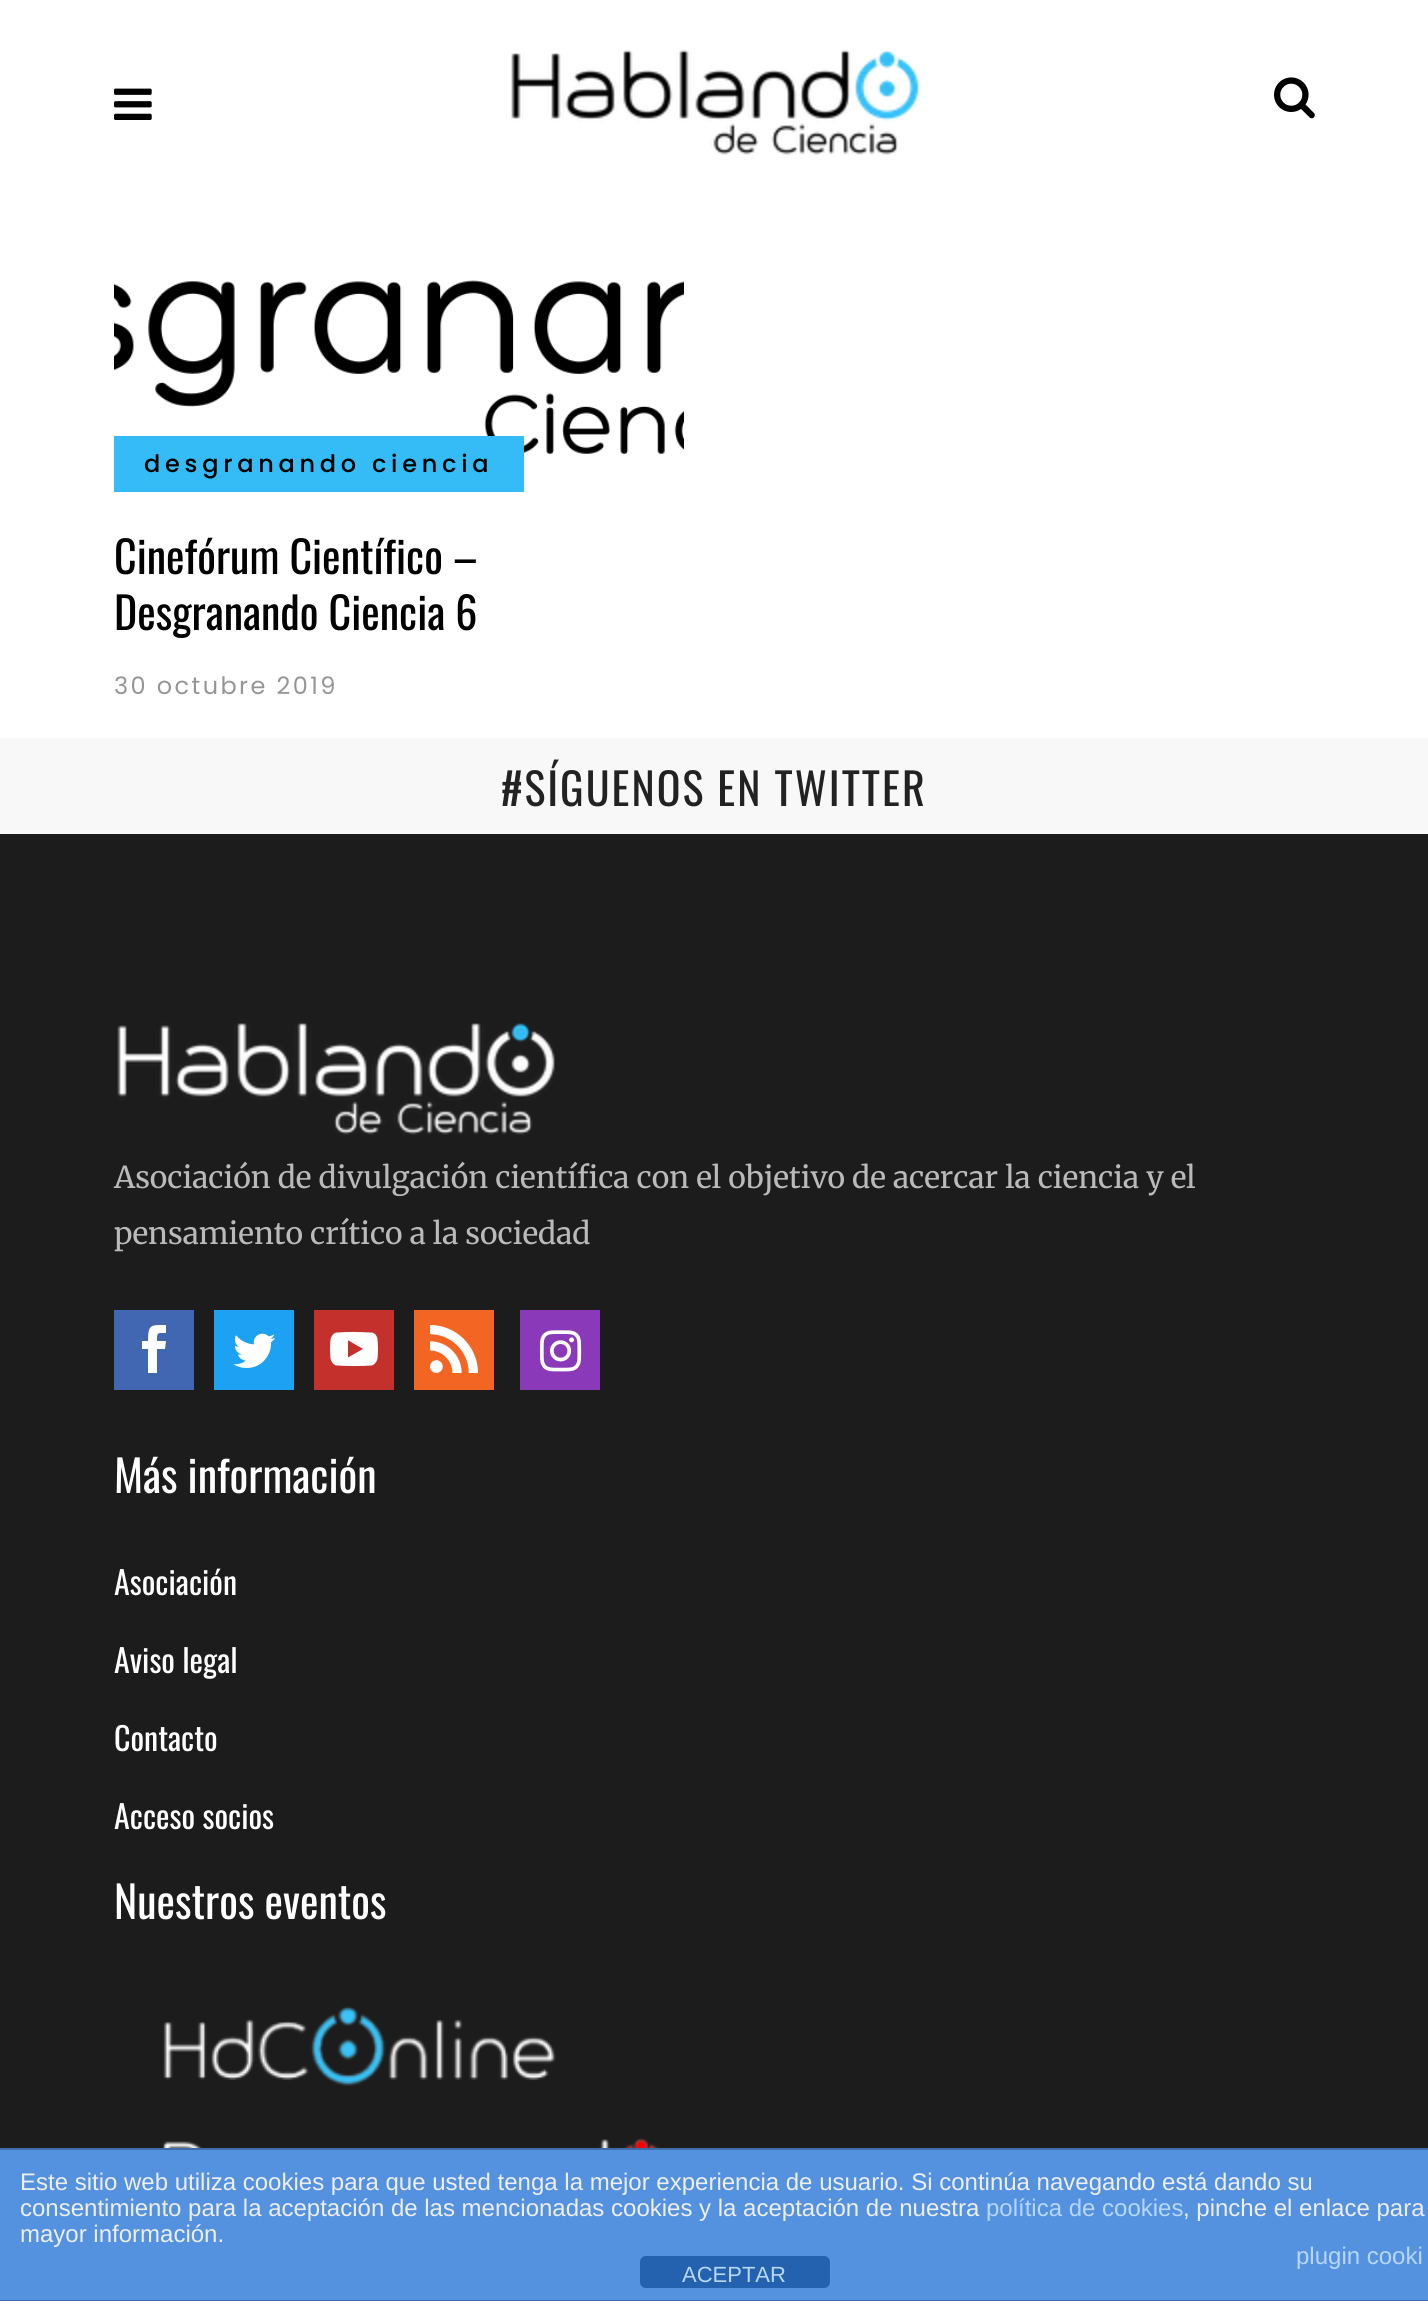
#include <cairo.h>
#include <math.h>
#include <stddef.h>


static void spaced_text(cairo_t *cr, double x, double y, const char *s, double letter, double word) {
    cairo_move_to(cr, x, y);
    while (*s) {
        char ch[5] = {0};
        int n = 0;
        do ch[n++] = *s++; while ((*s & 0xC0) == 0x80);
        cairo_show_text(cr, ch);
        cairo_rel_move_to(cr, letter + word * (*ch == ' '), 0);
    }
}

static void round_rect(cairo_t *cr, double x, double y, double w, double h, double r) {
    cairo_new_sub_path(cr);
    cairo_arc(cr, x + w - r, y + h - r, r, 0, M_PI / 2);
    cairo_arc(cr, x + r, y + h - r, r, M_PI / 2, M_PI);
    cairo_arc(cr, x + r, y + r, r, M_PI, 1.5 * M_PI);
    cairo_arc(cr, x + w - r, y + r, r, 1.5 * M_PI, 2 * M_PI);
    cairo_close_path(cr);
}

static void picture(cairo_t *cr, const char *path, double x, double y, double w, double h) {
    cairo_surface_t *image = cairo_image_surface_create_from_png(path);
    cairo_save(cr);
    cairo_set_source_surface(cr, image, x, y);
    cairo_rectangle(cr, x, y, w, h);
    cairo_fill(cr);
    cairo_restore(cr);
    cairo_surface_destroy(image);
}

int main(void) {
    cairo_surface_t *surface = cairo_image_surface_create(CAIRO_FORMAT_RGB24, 1428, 2301);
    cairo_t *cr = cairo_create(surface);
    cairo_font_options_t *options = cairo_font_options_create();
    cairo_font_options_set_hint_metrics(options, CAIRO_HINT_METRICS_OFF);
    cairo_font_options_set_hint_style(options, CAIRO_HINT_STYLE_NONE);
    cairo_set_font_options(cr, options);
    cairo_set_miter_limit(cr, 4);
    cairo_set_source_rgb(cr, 1, 1, 1);
    cairo_paint(cr);
    picture(cr, "img1.png", 114, 88, 38, 32);
    picture(cr, "img2.png", 511, 49, 409, 106);
    picture(cr, "img3.png", 1274, 77, 41, 42);
    picture(cr, "img4.png", 114, 280, 570, 174);
    cairo_set_source_rgb(cr, 0.208, 0.737, 0.961);
    cairo_rectangle(cr, 114, 436, 410, 56);
    cairo_fill(cr);
    cairo_select_font_face(cr, "Poppins Medium", CAIRO_FONT_SLANT_NORMAL, CAIRO_FONT_WEIGHT_NORMAL);
    cairo_set_font_size(cr, 24);
    cairo_set_source_rgb(cr, 0, 0, 0);
    spaced_text(cr, 144, 472, "desgranando ciencia", 4.75, 0);
    cairo_select_font_face(cr, "Oswald", CAIRO_FONT_SLANT_NORMAL, CAIRO_FONT_WEIGHT_NORMAL);
    cairo_set_font_size(cr, 44);
    cairo_move_to(cr, 114, 574);
    cairo_show_text(cr, "Cinefórum Científico –");
    cairo_move_to(cr, 114, 630);
    cairo_show_text(cr, "Desgranando Ciencia 6");
    cairo_select_font_face(cr, "Poppins", CAIRO_FONT_SLANT_NORMAL, CAIRO_FONT_WEIGHT_NORMAL);
    cairo_set_font_size(cr, 24);
    cairo_set_source_rgb(cr, 0.584, 0.584, 0.584);
    spaced_text(cr, 114, 694, "30 octubre 2019", 2.4, 0);
    cairo_set_source_rgb(cr, 0.969, 0.969, 0.969);
    cairo_rectangle(cr, 0, 738, 1428, 96);
    cairo_fill(cr);
    cairo_select_font_face(cr, "Oswald", CAIRO_FONT_SLANT_NORMAL, CAIRO_FONT_WEIGHT_NORMAL);
    cairo_set_font_size(cr, 44);
    cairo_set_source_rgb(cr, 0.133, 0.133, 0.133);
    spaced_text(cr, 501, 806, "#SÍGUENOS EN TWITTER", 2, 0);
    cairo_set_source_rgb(cr, 0.11, 0.11, 0.11);
    cairo_rectangle(cr, 0, 834, 1428, 1314);
    cairo_fill(cr);
    picture(cr, "img5.png", 117, 1023, 438, 112);
    cairo_select_font_face(cr, "Merriweather", CAIRO_FONT_SLANT_NORMAL, CAIRO_FONT_WEIGHT_NORMAL);
    cairo_set_font_size(cr, 30);
    cairo_set_source_rgb(cr, 0.729, 0.729, 0.729);
    cairo_move_to(cr, 114, 1188);
    cairo_show_text(cr, "Asociación de divulgación científica con el objetivo de acercar la ciencia y el");
    cairo_move_to(cr, 114, 1244);
    cairo_show_text(cr, "pensamiento crítico a la sociedad");
    cairo_set_source_rgb(cr, 0.259, 0.404, 0.698);
    cairo_rectangle(cr, 114, 1310, 80, 80);
    cairo_fill(cr);
    cairo_set_source_rgb(cr, 1, 1, 1);
    cairo_new_path(cr);
    cairo_move_to(cr, 148, 1373);
    cairo_line_to(cr, 148, 1349);
    cairo_line_to(cr, 142, 1349);
    cairo_line_to(cr, 142, 1341);
    cairo_line_to(cr, 148, 1341);
    cairo_curve_to(cr, 148, 1324, 151, 1325, 166, 1325);
    cairo_line_to(cr, 166, 1333);
    cairo_curve_to(cr, 157, 1333, 157, 1332, 157, 1341);
    cairo_line_to(cr, 166, 1341);
    cairo_line_to(cr, 165, 1349);
    cairo_line_to(cr, 157, 1349);
    cairo_line_to(cr, 157, 1373);
    cairo_close_path(cr);
    cairo_fill(cr);
    cairo_set_source_rgb(cr, 0.114, 0.631, 0.949);
    cairo_rectangle(cr, 214, 1310, 80, 80);
    cairo_fill(cr);
    picture(cr, "img6.png", 233, 1333, 43, 35);
    cairo_set_source_rgb(cr, 0.769, 0.188, 0.169);
    cairo_rectangle(cr, 314, 1310, 80, 80);
    cairo_fill(cr);
    picture(cr, "img7.png", 330, 1331, 48, 36);
    cairo_set_source_rgb(cr, 0.949, 0.396, 0.133);
    cairo_rectangle(cr, 414, 1310, 80, 80);
    cairo_fill(cr);
    picture(cr, "img8.png", 430, 1325, 48, 48);
    cairo_set_source_rgb(cr, 0.541, 0.227, 0.725);
    cairo_rectangle(cr, 520, 1310, 80, 80);
    cairo_fill(cr);
    picture(cr, "img9.png", 540, 1330, 42, 42);
    cairo_select_font_face(cr, "Oswald", CAIRO_FONT_SLANT_NORMAL, CAIRO_FONT_WEIGHT_NORMAL);
    cairo_set_font_size(cr, 44);
    cairo_set_source_rgb(cr, 1, 1, 1);
    cairo_move_to(cr, 114, 1493);
    cairo_show_text(cr, "Más información");
    cairo_set_font_size(cr, 32);
    cairo_move_to(cr, 114, 1595);
    cairo_show_text(cr, "Asociación");
    cairo_move_to(cr, 114, 1673);
    cairo_show_text(cr, "Aviso legal");
    cairo_move_to(cr, 114, 1751);
    cairo_show_text(cr, "Contacto");
    cairo_move_to(cr, 114, 1829);
    cairo_show_text(cr, "Acceso socios");
    cairo_set_font_size(cr, 44);
    cairo_move_to(cr, 114, 1919);
    cairo_show_text(cr, "Nuestros eventos");
    picture(cr, "img10.png", 163, 2006, 393, 80);
    picture(cr, "img11.png", 162, 2138, 497, 10);
    cairo_set_source_rgb(cr, 0.329, 0.573, 0.878);
    cairo_rectangle(cr, 0, 2150, 1428, 150);
    cairo_fill(cr);
    cairo_set_source_rgb(cr, 0.247, 0.427, 0.655);
    cairo_rectangle(cr, 0, 2148, 1428, 2);
    cairo_fill(cr);
    cairo_rectangle(cr, 0, 2300, 1428, 1);
    cairo_fill(cr);
    cairo_select_font_face(cr, "Liberation Sans", CAIRO_FONT_SLANT_NORMAL, CAIRO_FONT_WEIGHT_NORMAL);
    cairo_set_font_size(cr, 24);
    cairo_set_source_rgb(cr, 0.933, 0.933, 0.933);
    cairo_move_to(cr, 20, 2190);
    cairo_show_text(cr, "Este sitio web utiliza cookies para que usted tenga la mejor experiencia de usuario. Si continúa navegando está dando su");
    cairo_move_to(cr, 20, 2216);
    cairo_show_text(cr, "consentimiento para la aceptación de las mencionadas cookies y la aceptación de nuestra");
    cairo_set_source_rgb(cr, 0.718, 0.843, 1);
    cairo_move_to(cr, 986, 2216);
    cairo_show_text(cr, "política de cookies");
    cairo_set_source_rgb(cr, 0.933, 0.933, 0.933);
    cairo_move_to(cr, 1183, 2216);
    cairo_show_text(cr, ", pinche el enlace para");
    cairo_move_to(cr, 20, 2242);
    cairo_show_text(cr, "mayor información.");
    cairo_set_source_rgb(cr, 0.718, 0.843, 1);
    cairo_move_to(cr, 1296, 2264);
    cairo_show_text(cr, "plugin cooki");
    cairo_set_source_rgb(cr, 0.141, 0.384, 0.69);
    round_rect(cr, 640, 2256, 190, 32, 6);
    cairo_fill(cr);
    cairo_set_font_size(cr, 22);
    cairo_set_source_rgb(cr, 0.718, 0.843, 1);
    cairo_move_to(cr, 682, 2282);
    cairo_show_text(cr, "ACEPTAR");
    cairo_surface_write_to_png(surface, "page.png");
    cairo_font_options_destroy(options);
    cairo_destroy(cr);
    cairo_surface_destroy(surface);
    return 0;
}
